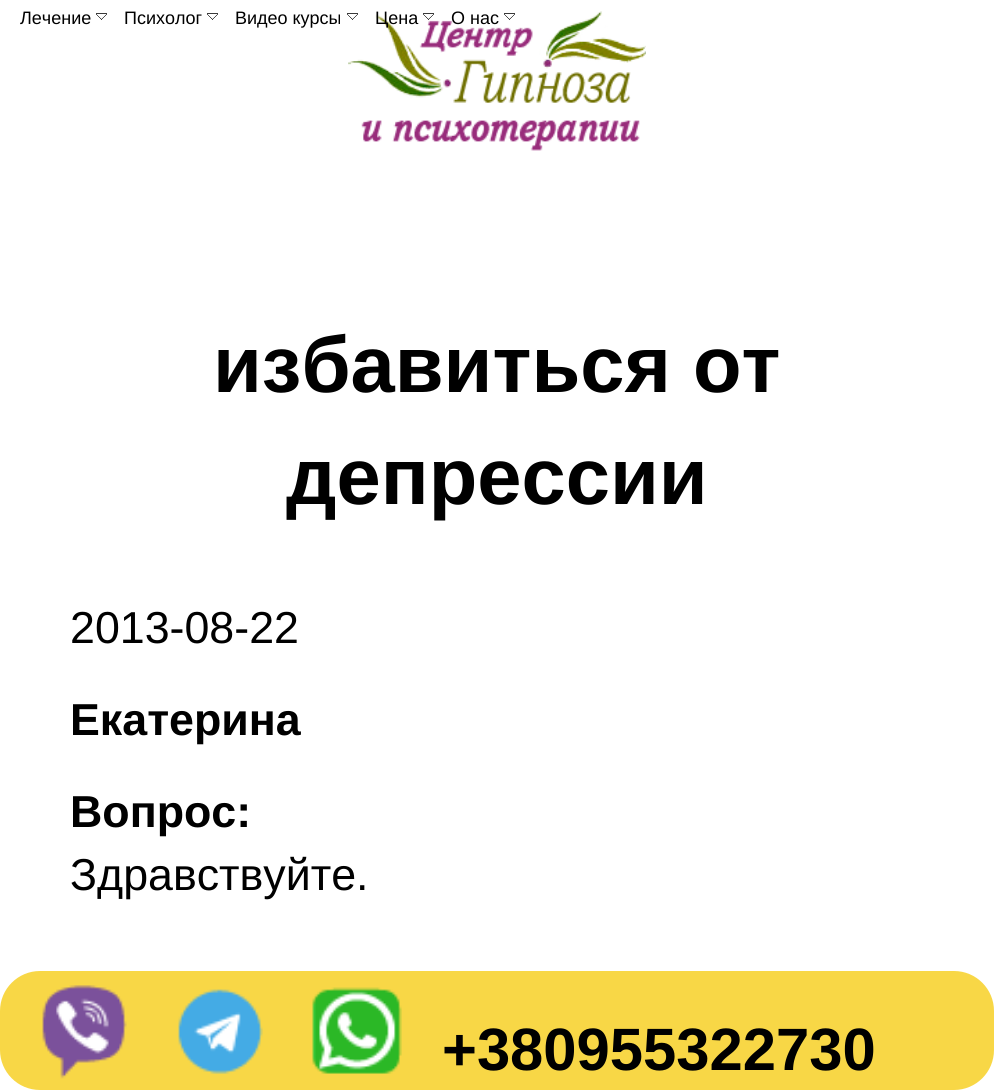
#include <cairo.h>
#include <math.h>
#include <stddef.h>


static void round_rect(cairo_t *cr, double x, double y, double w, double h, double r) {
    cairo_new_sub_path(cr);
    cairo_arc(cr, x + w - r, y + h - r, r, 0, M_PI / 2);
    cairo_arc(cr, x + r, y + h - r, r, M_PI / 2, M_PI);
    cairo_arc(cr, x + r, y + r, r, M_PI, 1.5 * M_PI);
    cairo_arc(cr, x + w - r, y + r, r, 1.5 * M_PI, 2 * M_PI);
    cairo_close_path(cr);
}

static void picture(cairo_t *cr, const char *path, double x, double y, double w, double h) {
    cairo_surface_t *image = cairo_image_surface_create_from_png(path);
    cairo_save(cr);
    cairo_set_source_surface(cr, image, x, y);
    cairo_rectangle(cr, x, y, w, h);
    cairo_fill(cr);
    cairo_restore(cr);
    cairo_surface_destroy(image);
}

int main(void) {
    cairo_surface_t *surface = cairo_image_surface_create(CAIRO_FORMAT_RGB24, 994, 1090);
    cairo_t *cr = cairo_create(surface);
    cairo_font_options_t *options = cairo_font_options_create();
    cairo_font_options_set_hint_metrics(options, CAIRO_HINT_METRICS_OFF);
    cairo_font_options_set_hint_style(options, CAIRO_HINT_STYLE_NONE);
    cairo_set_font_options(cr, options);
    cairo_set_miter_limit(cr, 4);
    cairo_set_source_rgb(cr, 1, 1, 1);
    cairo_paint(cr);
    cairo_select_font_face(cr, "Liberation Sans", CAIRO_FONT_SLANT_NORMAL, CAIRO_FONT_WEIGHT_NORMAL);
    cairo_set_font_size(cr, 18);
    cairo_set_source_rgb(cr, 0, 0, 0);
    cairo_move_to(cr, 20, 24);
    cairo_show_text(cr, "Лечение");
    picture(cr, "img1.png", 96, 13, 11, 7);
    cairo_move_to(cr, 124, 24);
    cairo_show_text(cr, "Психолог");
    picture(cr, "img1.png", 207, 13, 11, 7);
    cairo_move_to(cr, 235, 24);
    cairo_show_text(cr, "Видео курсы");
    picture(cr, "img2.png", 348, 11, 298, 140);
    picture(cr, "img1.png", 347, 13, 11, 7);
    cairo_move_to(cr, 375, 24);
    cairo_show_text(cr, "Цена");
    picture(cr, "img1.png", 423, 13, 11, 7);
    cairo_move_to(cr, 451, 24);
    cairo_show_text(cr, "О нас");
    picture(cr, "img1.png", 504, 13, 11, 7);
    cairo_set_source_rgb(cr, 0.969, 0.843, 0.275);
    round_rect(cr, 0, 971, 994, 119, 40);
    cairo_fill(cr);
    picture(cr, "img3.png", 42, 985, 85, 94);
    picture(cr, "img4.png", 178, 989, 85, 85);
    picture(cr, "img5.png", 312, 987, 90, 87);
    cairo_select_font_face(cr, "Liberation Sans", CAIRO_FONT_SLANT_NORMAL, CAIRO_FONT_WEIGHT_BOLD);
    cairo_set_font_size(cr, 59.75);
    cairo_set_source_rgb(cr, 0, 0, 0);
    cairo_move_to(cr, 442, 1070);
    cairo_show_text(cr, "+380955322730");
    cairo_set_font_size(cr, 79.5);
    cairo_move_to(cr, 213, 392);
    cairo_show_text(cr, "избавиться от");
    cairo_move_to(cr, 286, 504);
    cairo_show_text(cr, "депрессии");
    cairo_select_font_face(cr, "Liberation Sans", CAIRO_FONT_SLANT_NORMAL, CAIRO_FONT_WEIGHT_NORMAL);
    cairo_set_font_size(cr, 44.75);
    cairo_move_to(cr, 70, 643);
    cairo_show_text(cr, "2013-08-22");
    cairo_select_font_face(cr, "Liberation Sans", CAIRO_FONT_SLANT_NORMAL, CAIRO_FONT_WEIGHT_BOLD);
    cairo_move_to(cr, 70, 735);
    cairo_show_text(cr, "Екатерина");
    cairo_move_to(cr, 70, 827);
    cairo_show_text(cr, "Вопрос:");
    cairo_select_font_face(cr, "Liberation Sans", CAIRO_FONT_SLANT_NORMAL, CAIRO_FONT_WEIGHT_NORMAL);
    cairo_move_to(cr, 70, 890);
    cairo_show_text(cr, "Здравствуйте.");
    cairo_surface_write_to_png(surface, "page.png");
    cairo_font_options_destroy(options);
    cairo_destroy(cr);
    cairo_surface_destroy(surface);
    return 0;
}
